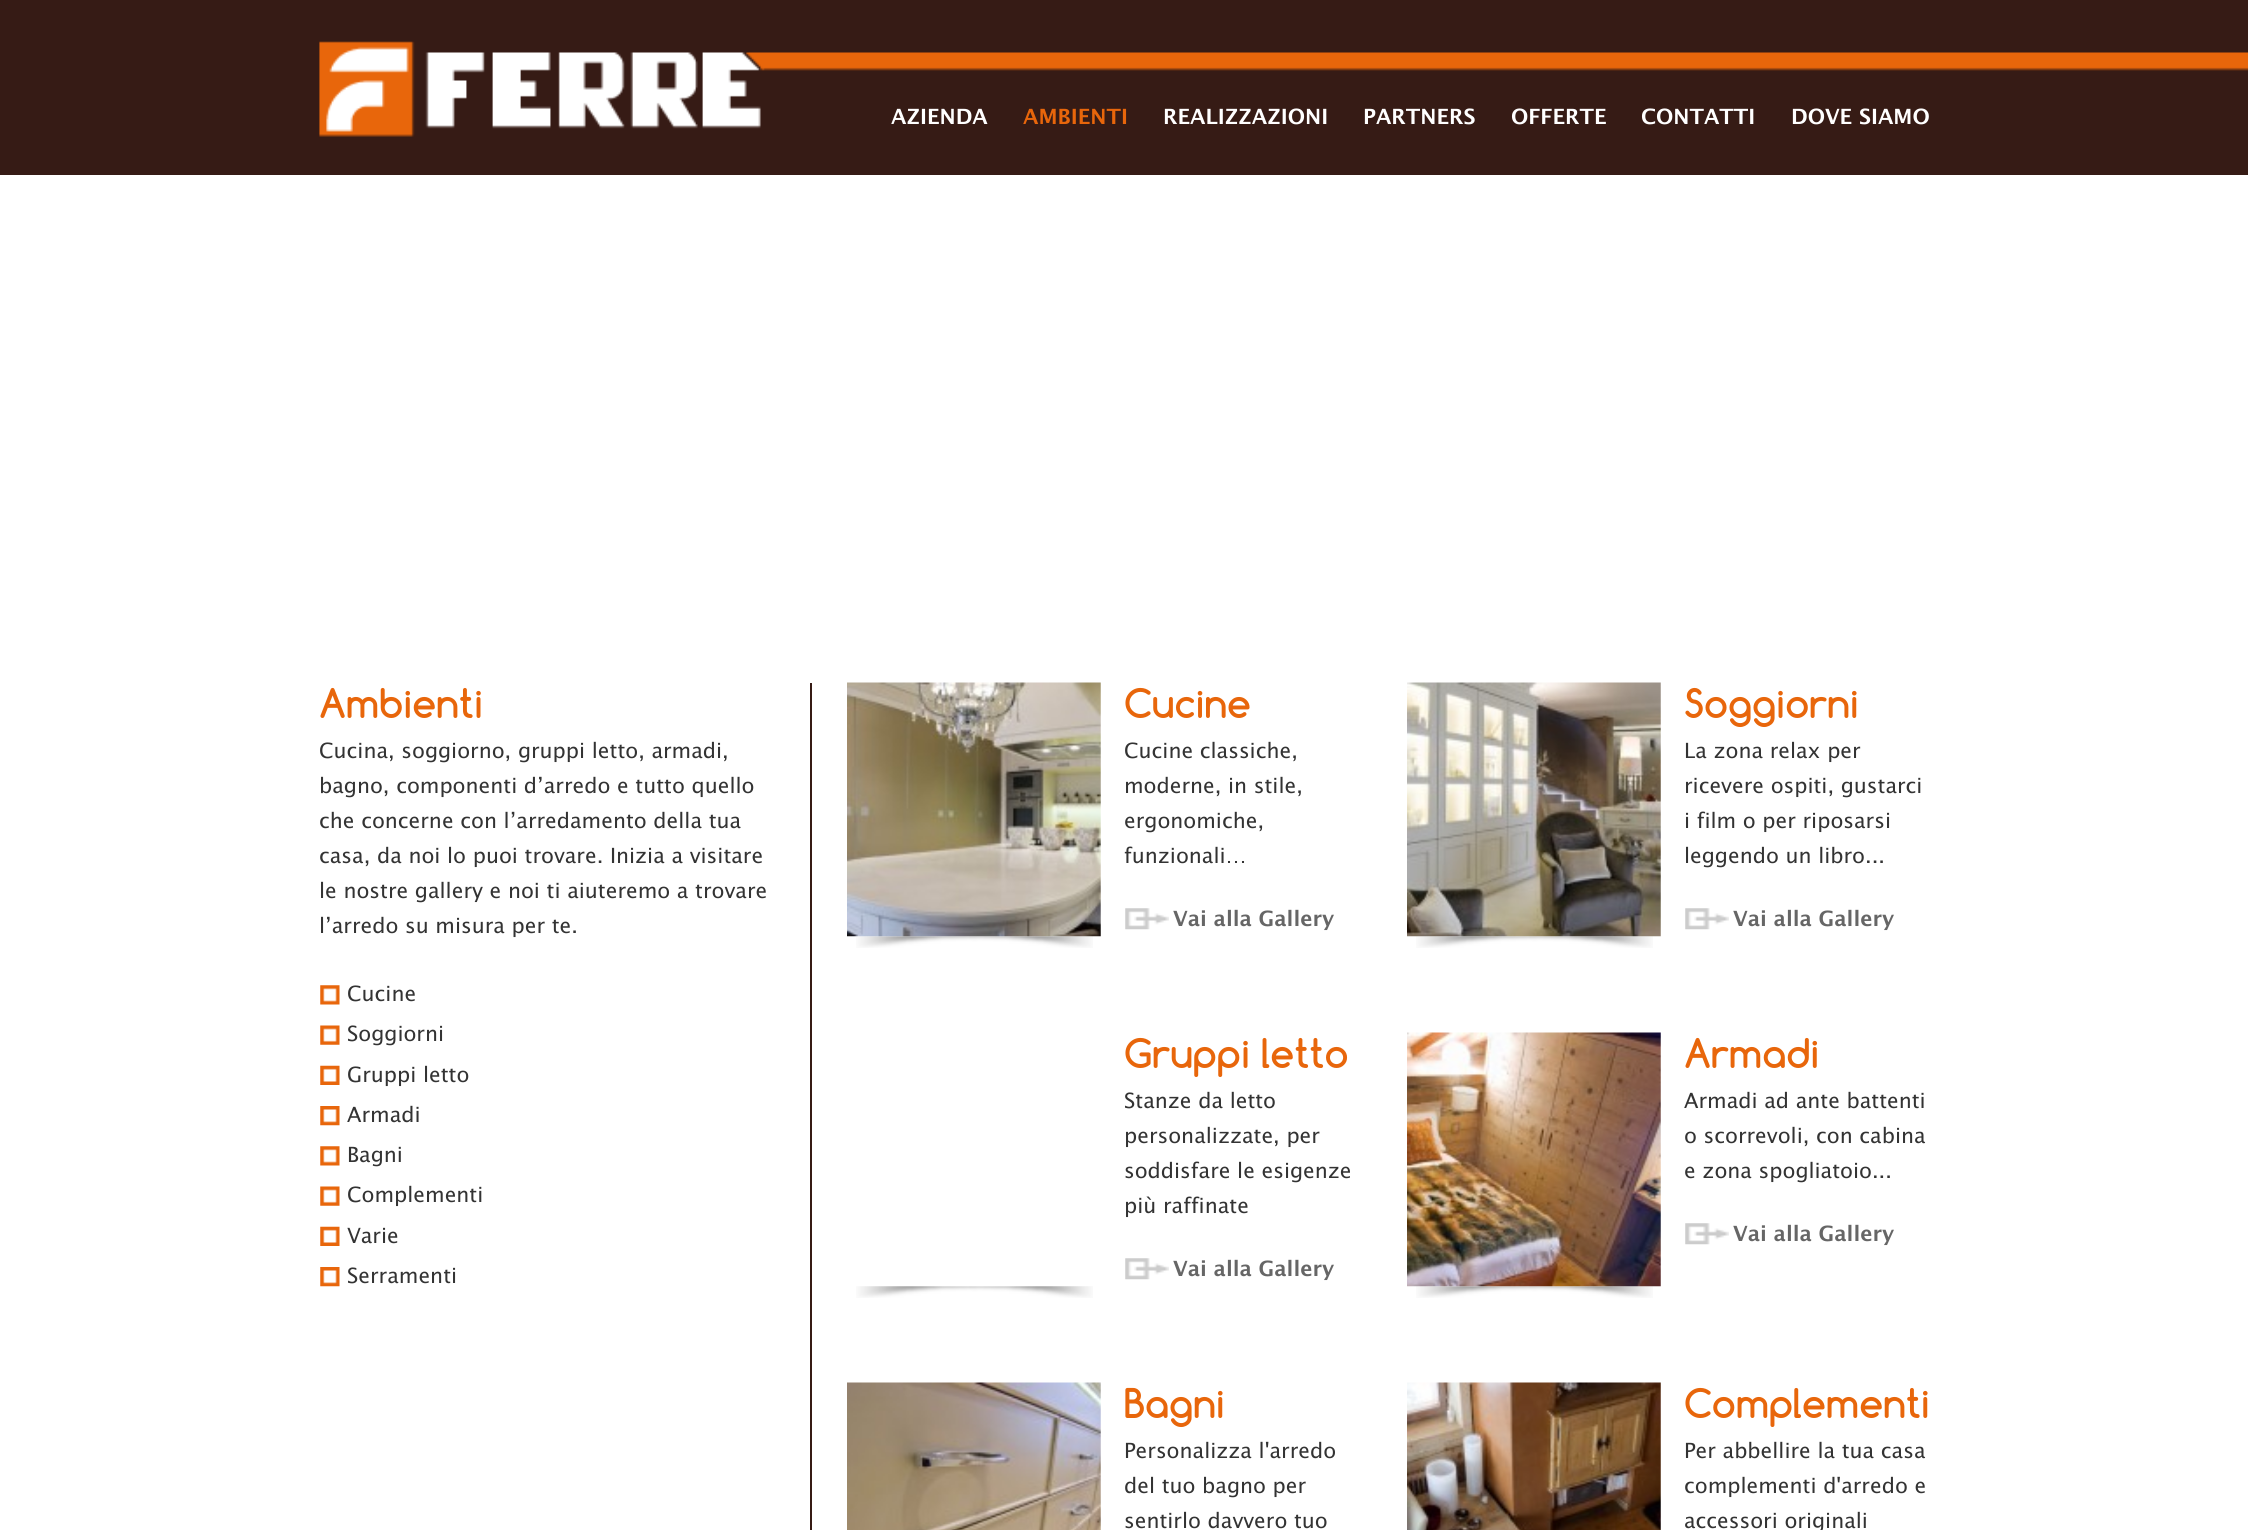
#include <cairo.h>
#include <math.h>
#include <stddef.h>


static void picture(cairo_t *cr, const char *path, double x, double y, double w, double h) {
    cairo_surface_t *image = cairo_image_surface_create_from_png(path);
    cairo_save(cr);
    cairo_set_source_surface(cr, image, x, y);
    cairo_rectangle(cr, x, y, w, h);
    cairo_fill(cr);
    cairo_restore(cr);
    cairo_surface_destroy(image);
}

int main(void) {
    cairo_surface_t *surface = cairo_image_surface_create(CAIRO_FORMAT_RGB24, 2248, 1530);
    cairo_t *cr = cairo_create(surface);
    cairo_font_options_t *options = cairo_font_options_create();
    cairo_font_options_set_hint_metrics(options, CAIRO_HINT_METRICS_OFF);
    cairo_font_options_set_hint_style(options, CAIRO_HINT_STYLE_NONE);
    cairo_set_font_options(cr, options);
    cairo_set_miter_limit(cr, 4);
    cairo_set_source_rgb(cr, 1, 1, 1);
    cairo_paint(cr);
    picture(cr, "img1.png", 0, 0, 2248, 175);
    cairo_select_font_face(cr, "Lucida Grande", CAIRO_FONT_SLANT_NORMAL, CAIRO_FONT_WEIGHT_BOLD);
    cairo_set_font_size(cr, 21);
    cairo_set_source_rgb(cr, 1, 1, 1);
    cairo_move_to(cr, 891, 124);
    cairo_show_text(cr, "AZIENDA");
    cairo_set_source_rgb(cr, 0.91, 0.4, 0.043);
    cairo_move_to(cr, 1023, 124);
    cairo_show_text(cr, "AMBIENTI");
    cairo_set_source_rgb(cr, 1, 1, 1);
    cairo_move_to(cr, 1163, 124);
    cairo_show_text(cr, "REALIZZAZIONI");
    cairo_move_to(cr, 1363, 124);
    cairo_show_text(cr, "PARTNERS");
    cairo_move_to(cr, 1511, 124);
    cairo_show_text(cr, "OFFERTE");
    cairo_move_to(cr, 1641, 124);
    cairo_show_text(cr, "CONTATTI");
    cairo_move_to(cr, 1791, 124);
    cairo_show_text(cr, "DOVE SIAMO");
    cairo_select_font_face(cr, "Comfortaa", CAIRO_FONT_SLANT_NORMAL, CAIRO_FONT_WEIGHT_BOLD);
    cairo_set_font_size(cr, 38.5);
    cairo_set_source_rgb(cr, 0.91, 0.4, 0.043);
    cairo_move_to(cr, 319, 718);
    cairo_show_text(cr, "Ambienti");
    cairo_select_font_face(cr, "Lucida Grande", CAIRO_FONT_SLANT_NORMAL, CAIRO_FONT_WEIGHT_NORMAL);
    cairo_set_font_size(cr, 21);
    cairo_set_source_rgb(cr, 0.2, 0.2, 0.2);
    cairo_move_to(cr, 319, 758);
    cairo_show_text(cr, "Cucina, soggiorno, gruppi letto, armadi,");
    cairo_move_to(cr, 319, 793);
    cairo_show_text(cr, "bagno, componenti d’arredo e tutto quello");
    cairo_move_to(cr, 319, 828);
    cairo_show_text(cr, "che concerne con l’arredamento della tua");
    cairo_move_to(cr, 319, 863);
    cairo_show_text(cr, "casa, da noi lo puoi trovare. Inizia a visitare");
    cairo_move_to(cr, 319, 898);
    cairo_show_text(cr, "le nostre gallery e noi ti aiuteremo a trovare");
    cairo_move_to(cr, 319, 933);
    cairo_show_text(cr, "l’arredo su misura per te.");
    picture(cr, "img2.png", 320, 985, 20, 20);
    cairo_move_to(cr, 347, 1001);
    cairo_show_text(cr, "Cucine");
    picture(cr, "img3.png", 320, 1025, 20, 20);
    cairo_move_to(cr, 347, 1041);
    cairo_show_text(cr, "Soggiorni");
    picture(cr, "img4.png", 320, 1065, 20, 20);
    cairo_move_to(cr, 347, 1082);
    cairo_show_text(cr, "Gruppi letto");
    picture(cr, "img5.png", 320, 1106, 20, 20);
    cairo_move_to(cr, 347, 1122);
    cairo_show_text(cr, "Armadi");
    picture(cr, "img2.png", 320, 1146, 20, 20);
    cairo_move_to(cr, 347, 1162);
    cairo_show_text(cr, "Bagni");
    picture(cr, "img3.png", 320, 1186, 20, 20);
    cairo_move_to(cr, 347, 1202);
    cairo_show_text(cr, "Complementi");
    picture(cr, "img4.png", 320, 1226, 20, 20);
    cairo_move_to(cr, 347, 1243);
    cairo_show_text(cr, "Varie");
    picture(cr, "img5.png", 320, 1267, 20, 20);
    cairo_move_to(cr, 347, 1283);
    cairo_show_text(cr, "Serramenti");
    cairo_set_source_rgb(cr, 0.212, 0.106, 0.082);
    cairo_rectangle(cr, 810, 683, 2, 847);
    cairo_fill(cr);
    picture(cr, "img6.png", 856, 936, 237, 12);
    picture(cr, "img7.png", 847, 682, 254, 255);
    cairo_select_font_face(cr, "Comfortaa", CAIRO_FONT_SLANT_NORMAL, CAIRO_FONT_WEIGHT_BOLD);
    cairo_set_font_size(cr, 38.5);
    cairo_set_source_rgb(cr, 0.91, 0.4, 0.043);
    cairo_move_to(cr, 1124, 718);
    cairo_show_text(cr, "Cucine");
    cairo_select_font_face(cr, "Lucida Grande", CAIRO_FONT_SLANT_NORMAL, CAIRO_FONT_WEIGHT_NORMAL);
    cairo_set_font_size(cr, 21);
    cairo_set_source_rgb(cr, 0.2, 0.2, 0.2);
    cairo_move_to(cr, 1124, 758);
    cairo_show_text(cr, "Cucine classiche,");
    cairo_move_to(cr, 1124, 793);
    cairo_show_text(cr, "moderne, in stile,");
    cairo_move_to(cr, 1124, 828);
    cairo_show_text(cr, "ergonomiche,");
    cairo_move_to(cr, 1124, 863);
    cairo_show_text(cr, "funzionali…");
    picture(cr, "img8.png", 1125, 908, 44, 22);
    cairo_select_font_face(cr, "Lucida Grande", CAIRO_FONT_SLANT_NORMAL, CAIRO_FONT_WEIGHT_BOLD);
    cairo_set_source_rgb(cr, 0.4, 0.4, 0.4);
    cairo_move_to(cr, 1173, 926);
    cairo_show_text(cr, "Vai alla Gallery");
    picture(cr, "img6.png", 1416, 936, 237, 12);
    picture(cr, "img9.png", 1407, 682, 254, 255);
    cairo_select_font_face(cr, "Comfortaa", CAIRO_FONT_SLANT_NORMAL, CAIRO_FONT_WEIGHT_BOLD);
    cairo_set_font_size(cr, 38.5);
    cairo_set_source_rgb(cr, 0.91, 0.4, 0.043);
    cairo_move_to(cr, 1684, 718);
    cairo_show_text(cr, "Soggiorni");
    cairo_select_font_face(cr, "Lucida Grande", CAIRO_FONT_SLANT_NORMAL, CAIRO_FONT_WEIGHT_NORMAL);
    cairo_set_font_size(cr, 21);
    cairo_set_source_rgb(cr, 0.2, 0.2, 0.2);
    cairo_move_to(cr, 1684, 758);
    cairo_show_text(cr, "La zona relax per");
    cairo_move_to(cr, 1684, 793);
    cairo_show_text(cr, "ricevere ospiti, gustarci");
    cairo_move_to(cr, 1684, 828);
    cairo_show_text(cr, "i film o per riposarsi");
    cairo_move_to(cr, 1684, 863);
    cairo_show_text(cr, "leggendo un libro...");
    picture(cr, "img8.png", 1685, 908, 44, 22);
    cairo_select_font_face(cr, "Lucida Grande", CAIRO_FONT_SLANT_NORMAL, CAIRO_FONT_WEIGHT_BOLD);
    cairo_set_source_rgb(cr, 0.4, 0.4, 0.4);
    cairo_move_to(cr, 1733, 926);
    cairo_show_text(cr, "Vai alla Gallery");
    cairo_select_font_face(cr, "Comfortaa", CAIRO_FONT_SLANT_NORMAL, CAIRO_FONT_WEIGHT_BOLD);
    cairo_set_font_size(cr, 38.5);
    cairo_set_source_rgb(cr, 0.91, 0.4, 0.043);
    cairo_move_to(cr, 1124, 1068);
    cairo_show_text(cr, "Gruppi letto");
    cairo_select_font_face(cr, "Lucida Grande", CAIRO_FONT_SLANT_NORMAL, CAIRO_FONT_WEIGHT_NORMAL);
    cairo_set_font_size(cr, 21);
    cairo_set_source_rgb(cr, 0.2, 0.2, 0.2);
    cairo_move_to(cr, 1124, 1108);
    cairo_show_text(cr, "Stanze da letto");
    cairo_move_to(cr, 1124, 1143);
    cairo_show_text(cr, "personalizzate, per");
    cairo_move_to(cr, 1124, 1178);
    cairo_show_text(cr, "soddisfare le esigenze");
    cairo_move_to(cr, 1124, 1213);
    cairo_show_text(cr, "più raffinate");
    picture(cr, "img8.png", 1125, 1258, 44, 22);
    cairo_select_font_face(cr, "Lucida Grande", CAIRO_FONT_SLANT_NORMAL, CAIRO_FONT_WEIGHT_BOLD);
    cairo_set_source_rgb(cr, 0.4, 0.4, 0.4);
    cairo_move_to(cr, 1173, 1276);
    cairo_show_text(cr, "Vai alla Gallery");
    picture(cr, "img6.png", 856, 1286, 237, 12);
    picture(cr, "img6.png", 1416, 1286, 237, 12);
    picture(cr, "img10.png", 1407, 1032, 254, 255);
    cairo_select_font_face(cr, "Comfortaa", CAIRO_FONT_SLANT_NORMAL, CAIRO_FONT_WEIGHT_BOLD);
    cairo_set_font_size(cr, 38.5);
    cairo_set_source_rgb(cr, 0.91, 0.4, 0.043);
    cairo_move_to(cr, 1684, 1068);
    cairo_show_text(cr, "Armadi");
    cairo_select_font_face(cr, "Lucida Grande", CAIRO_FONT_SLANT_NORMAL, CAIRO_FONT_WEIGHT_NORMAL);
    cairo_set_font_size(cr, 21);
    cairo_set_source_rgb(cr, 0.2, 0.2, 0.2);
    cairo_move_to(cr, 1684, 1108);
    cairo_show_text(cr, "Armadi ad ante battenti");
    cairo_move_to(cr, 1684, 1143);
    cairo_show_text(cr, "o scorrevoli, con cabina");
    cairo_move_to(cr, 1684, 1178);
    cairo_show_text(cr, "e zona spogliatoio...");
    picture(cr, "img8.png", 1685, 1223, 44, 22);
    cairo_select_font_face(cr, "Lucida Grande", CAIRO_FONT_SLANT_NORMAL, CAIRO_FONT_WEIGHT_BOLD);
    cairo_set_source_rgb(cr, 0.4, 0.4, 0.4);
    cairo_move_to(cr, 1733, 1241);
    cairo_show_text(cr, "Vai alla Gallery");
    picture(cr, "img11.png", 847, 1382, 254, 148);
    cairo_select_font_face(cr, "Comfortaa", CAIRO_FONT_SLANT_NORMAL, CAIRO_FONT_WEIGHT_BOLD);
    cairo_set_font_size(cr, 38.5);
    cairo_set_source_rgb(cr, 0.91, 0.4, 0.043);
    cairo_move_to(cr, 1124, 1418);
    cairo_show_text(cr, "Bagni");
    cairo_select_font_face(cr, "Lucida Grande", CAIRO_FONT_SLANT_NORMAL, CAIRO_FONT_WEIGHT_NORMAL);
    cairo_set_font_size(cr, 21);
    cairo_set_source_rgb(cr, 0.2, 0.2, 0.2);
    cairo_move_to(cr, 1124, 1458);
    cairo_show_text(cr, "Personalizza l'arredo");
    cairo_move_to(cr, 1124, 1493);
    cairo_show_text(cr, "del tuo bagno per");
    cairo_move_to(cr, 1124, 1528);
    cairo_show_text(cr, "sentirlo davvero tuo");
    picture(cr, "img12.png", 1407, 1382, 254, 148);
    cairo_select_font_face(cr, "Comfortaa", CAIRO_FONT_SLANT_NORMAL, CAIRO_FONT_WEIGHT_BOLD);
    cairo_set_font_size(cr, 38.5);
    cairo_set_source_rgb(cr, 0.91, 0.4, 0.043);
    cairo_move_to(cr, 1684, 1418);
    cairo_show_text(cr, "Complementi");
    cairo_select_font_face(cr, "Lucida Grande", CAIRO_FONT_SLANT_NORMAL, CAIRO_FONT_WEIGHT_NORMAL);
    cairo_set_font_size(cr, 21);
    cairo_set_source_rgb(cr, 0.2, 0.2, 0.2);
    cairo_move_to(cr, 1684, 1458);
    cairo_show_text(cr, "Per abbellire la tua casa");
    cairo_move_to(cr, 1684, 1493);
    cairo_show_text(cr, "complementi d'arredo e");
    cairo_move_to(cr, 1684, 1528);
    cairo_show_text(cr, "accessori originali");
    cairo_surface_write_to_png(surface, "page.png");
    cairo_font_options_destroy(options);
    cairo_destroy(cr);
    cairo_surface_destroy(surface);
    return 0;
}
